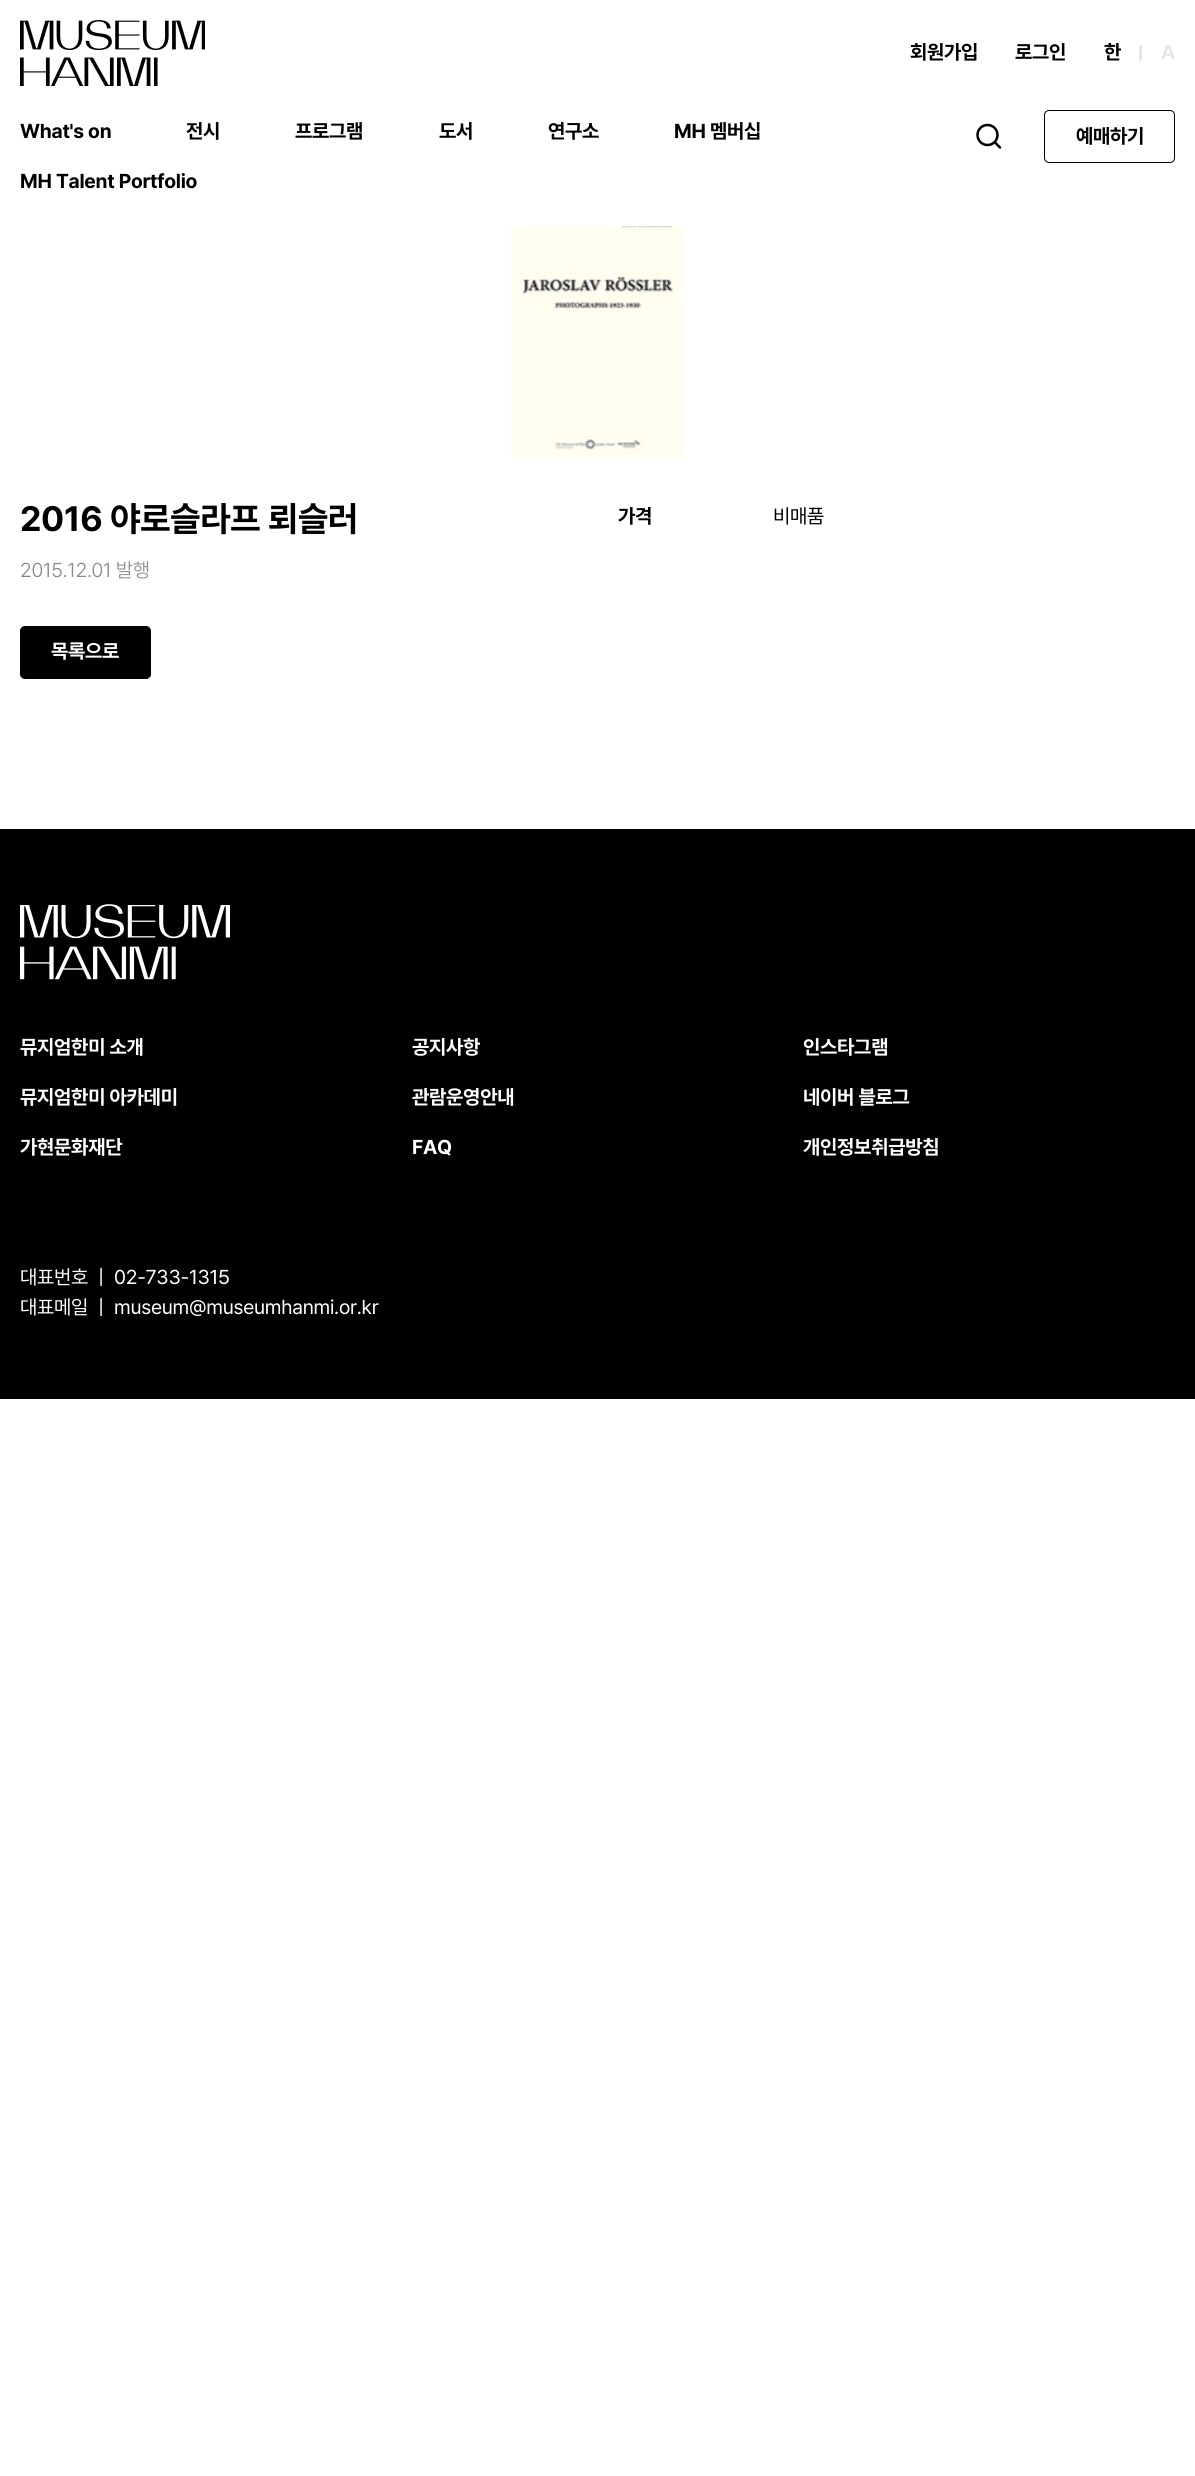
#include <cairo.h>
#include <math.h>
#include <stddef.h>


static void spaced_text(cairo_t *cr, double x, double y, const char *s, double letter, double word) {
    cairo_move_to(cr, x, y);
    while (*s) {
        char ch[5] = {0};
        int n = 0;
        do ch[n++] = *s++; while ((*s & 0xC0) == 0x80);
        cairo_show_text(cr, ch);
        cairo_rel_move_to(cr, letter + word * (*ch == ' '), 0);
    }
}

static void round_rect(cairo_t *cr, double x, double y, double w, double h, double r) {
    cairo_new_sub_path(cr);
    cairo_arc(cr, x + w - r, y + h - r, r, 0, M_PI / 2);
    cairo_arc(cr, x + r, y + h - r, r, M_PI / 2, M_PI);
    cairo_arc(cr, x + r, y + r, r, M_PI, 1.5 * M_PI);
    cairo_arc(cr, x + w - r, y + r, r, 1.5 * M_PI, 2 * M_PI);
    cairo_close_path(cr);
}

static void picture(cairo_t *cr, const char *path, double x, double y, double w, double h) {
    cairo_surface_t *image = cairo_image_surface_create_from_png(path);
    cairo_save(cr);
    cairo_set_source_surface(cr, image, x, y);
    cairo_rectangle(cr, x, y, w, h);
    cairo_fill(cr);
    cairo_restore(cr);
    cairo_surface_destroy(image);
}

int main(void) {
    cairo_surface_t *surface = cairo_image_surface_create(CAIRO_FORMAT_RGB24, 1195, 2476);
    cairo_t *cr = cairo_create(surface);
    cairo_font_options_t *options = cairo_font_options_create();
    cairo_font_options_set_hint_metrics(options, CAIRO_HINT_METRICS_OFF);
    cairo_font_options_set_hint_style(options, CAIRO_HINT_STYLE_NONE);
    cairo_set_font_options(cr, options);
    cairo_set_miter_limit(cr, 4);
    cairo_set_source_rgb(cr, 1, 1, 1);
    cairo_paint(cr);
    picture(cr, "img1.png", 20, 20, 185, 66);
    cairo_select_font_face(cr, "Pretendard", CAIRO_FONT_SLANT_NORMAL, CAIRO_FONT_WEIGHT_BOLD);
    cairo_set_font_size(cr, 20);
    cairo_set_source_rgb(cr, 0, 0, 0);
    spaced_text(cr, 910, 59, "회원가입", -0.25, 0);
    spaced_text(cr, 1015, 59, "로그인", -0.25, 0);
    spaced_text(cr, 1104, 59, "한", -0.25, 0);
    cairo_set_source_rgb(cr, 0.902, 0.902, 0.902);
    round_rect(cr, 1139, 45, 3, 16, 1.5);
    cairo_fill(cr);
    spaced_text(cr, 1161, 59, "A", -0.25, 0);
    cairo_set_source_rgb(cr, 0, 0, 0);
    spaced_text(cr, 20, 138, "What's on", -0.25, 0);
    spaced_text(cr, 186, 138, "전시", -0.25, 0);
    spaced_text(cr, 295, 138, "프로그램", -0.25, 0);
    spaced_text(cr, 439, 138, "도서", -0.25, 0);
    spaced_text(cr, 548, 138, "연구소", -0.25, 0);
    spaced_text(cr, 674, 138, "MH 멤버십", -0.25, 0);
    spaced_text(cr, 20, 188, "MH Talent Portfolio", -0.25, 0);
    picture(cr, "img2.png", 976, 123, 26, 26);
    round_rect(cr, 1044.5, 110.5, 130, 52, 4.5);
    cairo_set_line_width(cr, 1);
    cairo_stroke(cr);
    spaced_text(cr, 1076, 143, "예매하기", -0.25, 0);
    picture(cr, "img3.png", 511, 226, 173, 233);
    cairo_set_font_size(cr, 35);
    spaced_text(cr, 20, 531, "2016 야로슬라프 뢰슬러", -0.25, 0);
    cairo_select_font_face(cr, "Pretendard Light", CAIRO_FONT_SLANT_NORMAL, CAIRO_FONT_WEIGHT_NORMAL);
    cairo_set_font_size(cr, 20);
    cairo_set_source_rgb(cr, 0.533, 0.533, 0.533);
    spaced_text(cr, 20, 577, "2015.12.01 발행", -0.25, 0);
    cairo_select_font_face(cr, "Pretendard", CAIRO_FONT_SLANT_NORMAL, CAIRO_FONT_WEIGHT_BOLD);
    cairo_set_source_rgb(cr, 0, 0, 0);
    spaced_text(cr, 618, 523, "가격", -0.25, 0);
    cairo_select_font_face(cr, "Pretendard", CAIRO_FONT_SLANT_NORMAL, CAIRO_FONT_WEIGHT_NORMAL);
    spaced_text(cr, 773, 523, "비매품", -0.25, 0);
    round_rect(cr, 20.5, 626.5, 130, 52, 4.5);
    cairo_fill_preserve(cr);
    cairo_stroke(cr);
    cairo_select_font_face(cr, "Pretendard", CAIRO_FONT_SLANT_NORMAL, CAIRO_FONT_WEIGHT_BOLD);
    cairo_set_source_rgb(cr, 1, 1, 1);
    spaced_text(cr, 51, 658, "목록으로", -0.25, 0);
    cairo_set_source_rgb(cr, 0, 0, 0);
    cairo_rectangle(cr, 0, 829, 1195, 570);
    cairo_fill(cr);
    picture(cr, "img4.png", 20, 904, 210, 76);
    cairo_set_source_rgb(cr, 1, 1, 1);
    spaced_text(cr, 20, 1054, "뮤지엄한미 소개", -0.25, 0);
    spaced_text(cr, 412, 1054, "공지사항", -0.25, 0);
    spaced_text(cr, 803, 1054, "인스타그램", -0.25, 0);
    spaced_text(cr, 20, 1104, "뮤지엄한미 아카데미", -0.25, 0);
    spaced_text(cr, 412, 1104, "관람운영안내", -0.25, 0);
    spaced_text(cr, 803, 1104, "네이버 블로그", -0.25, 0);
    spaced_text(cr, 20, 1154, "가현문화재단", -0.25, 0);
    spaced_text(cr, 412, 1154, "FAQ", -0.25, 0);
    spaced_text(cr, 803, 1154, "개인정보취급방침", -0.25, 0);
    cairo_select_font_face(cr, "Pretendard", CAIRO_FONT_SLANT_NORMAL, CAIRO_FONT_WEIGHT_NORMAL);
    spaced_text(cr, 20, 1284, "대표번호", -0.25, 0);
    spaced_text(cr, 98, 1284, "|", -0.25, 0);
    spaced_text(cr, 114, 1284, "02-733-1315", -0.25, 0);
    spaced_text(cr, 20, 1314, "대표메일", -0.25, 0);
    spaced_text(cr, 98, 1314, "|", -0.25, 0);
    spaced_text(cr, 114, 1314, "museum@museumhanmi.or.kr", -0.25, 0);
    cairo_surface_write_to_png(surface, "page.png");
    cairo_font_options_destroy(options);
    cairo_destroy(cr);
    cairo_surface_destroy(surface);
    return 0;
}
